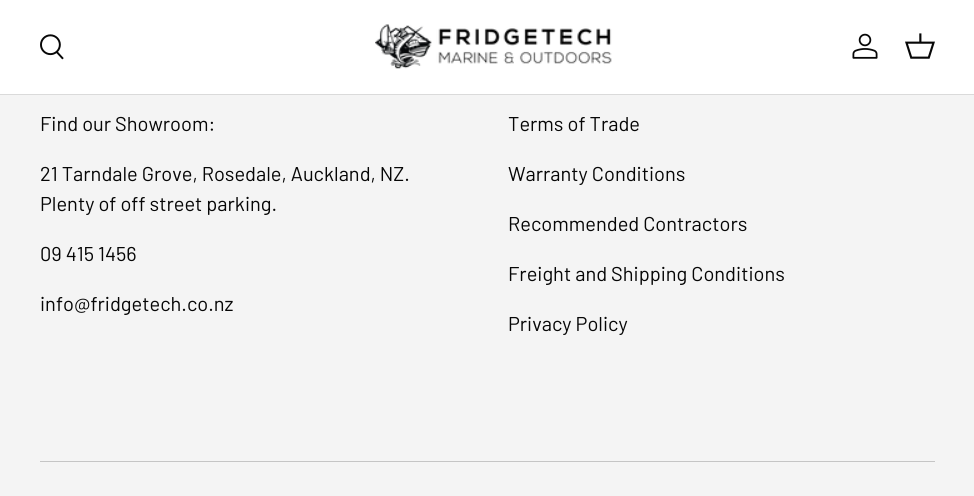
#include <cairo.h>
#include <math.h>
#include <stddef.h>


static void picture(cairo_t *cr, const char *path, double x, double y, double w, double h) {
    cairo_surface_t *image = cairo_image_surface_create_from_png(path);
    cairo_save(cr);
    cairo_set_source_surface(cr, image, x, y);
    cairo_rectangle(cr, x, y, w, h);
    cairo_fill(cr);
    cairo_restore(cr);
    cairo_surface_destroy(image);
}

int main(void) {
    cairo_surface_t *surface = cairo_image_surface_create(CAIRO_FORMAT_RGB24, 974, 496);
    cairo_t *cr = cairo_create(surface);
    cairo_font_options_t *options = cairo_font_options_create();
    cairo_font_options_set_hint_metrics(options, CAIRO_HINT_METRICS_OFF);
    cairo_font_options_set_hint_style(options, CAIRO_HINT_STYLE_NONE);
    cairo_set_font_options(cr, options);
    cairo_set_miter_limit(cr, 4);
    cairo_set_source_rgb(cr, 0.957, 0.957, 0.957);
    cairo_paint(cr);
    cairo_set_source_rgb(cr, 1, 1, 1);
    cairo_rectangle(cr, 0, 0, 974, 94);
    cairo_fill(cr);
    cairo_set_source_rgb(cr, 0.855, 0.855, 0.855);
    cairo_rectangle(cr, 0, 94, 974, 1);
    cairo_fill(cr);
    picture(cr, "img1.png", 40, 34, 24, 26);
    picture(cr, "img2.png", 375, 24, 237, 45);
    picture(cr, "img3.png", 852, 33, 26, 26);
    picture(cr, "img4.png", 905, 33, 30, 26);
    cairo_select_font_face(cr, "Barlow", CAIRO_FONT_SLANT_NORMAL, CAIRO_FONT_WEIGHT_NORMAL);
    cairo_set_font_size(cr, 20);
    cairo_set_source_rgb(cr, 0.027, 0.027, 0.027);
    cairo_move_to(cr, 40, 131);
    cairo_show_text(cr, "Find our Showroom:");
    cairo_move_to(cr, 40, 181);
    cairo_show_text(cr, "21 Tarndale Grove, Rosedale, Auckland, NZ.");
    cairo_move_to(cr, 40, 211);
    cairo_show_text(cr, "Plenty of off street parking.");
    cairo_move_to(cr, 40, 261);
    cairo_show_text(cr, "09 415 1456");
    cairo_move_to(cr, 40, 311);
    cairo_show_text(cr, "info@fridgetech.co.nz");
    cairo_move_to(cr, 508, 131);
    cairo_show_text(cr, "Terms of Trade");
    cairo_move_to(cr, 508, 181);
    cairo_show_text(cr, "Warranty Conditions");
    cairo_move_to(cr, 508, 231);
    cairo_show_text(cr, "Recommended Contractors");
    cairo_move_to(cr, 508, 281);
    cairo_show_text(cr, "Freight and Shipping Conditions");
    cairo_move_to(cr, 508, 331);
    cairo_show_text(cr, "Privacy Policy");
    cairo_set_source_rgb(cr, 0.773, 0.773, 0.773);
    cairo_rectangle(cr, 40, 461, 895, 1);
    cairo_fill(cr);
    cairo_surface_write_to_png(surface, "page.png");
    cairo_font_options_destroy(options);
    cairo_destroy(cr);
    cairo_surface_destroy(surface);
    return 0;
}
